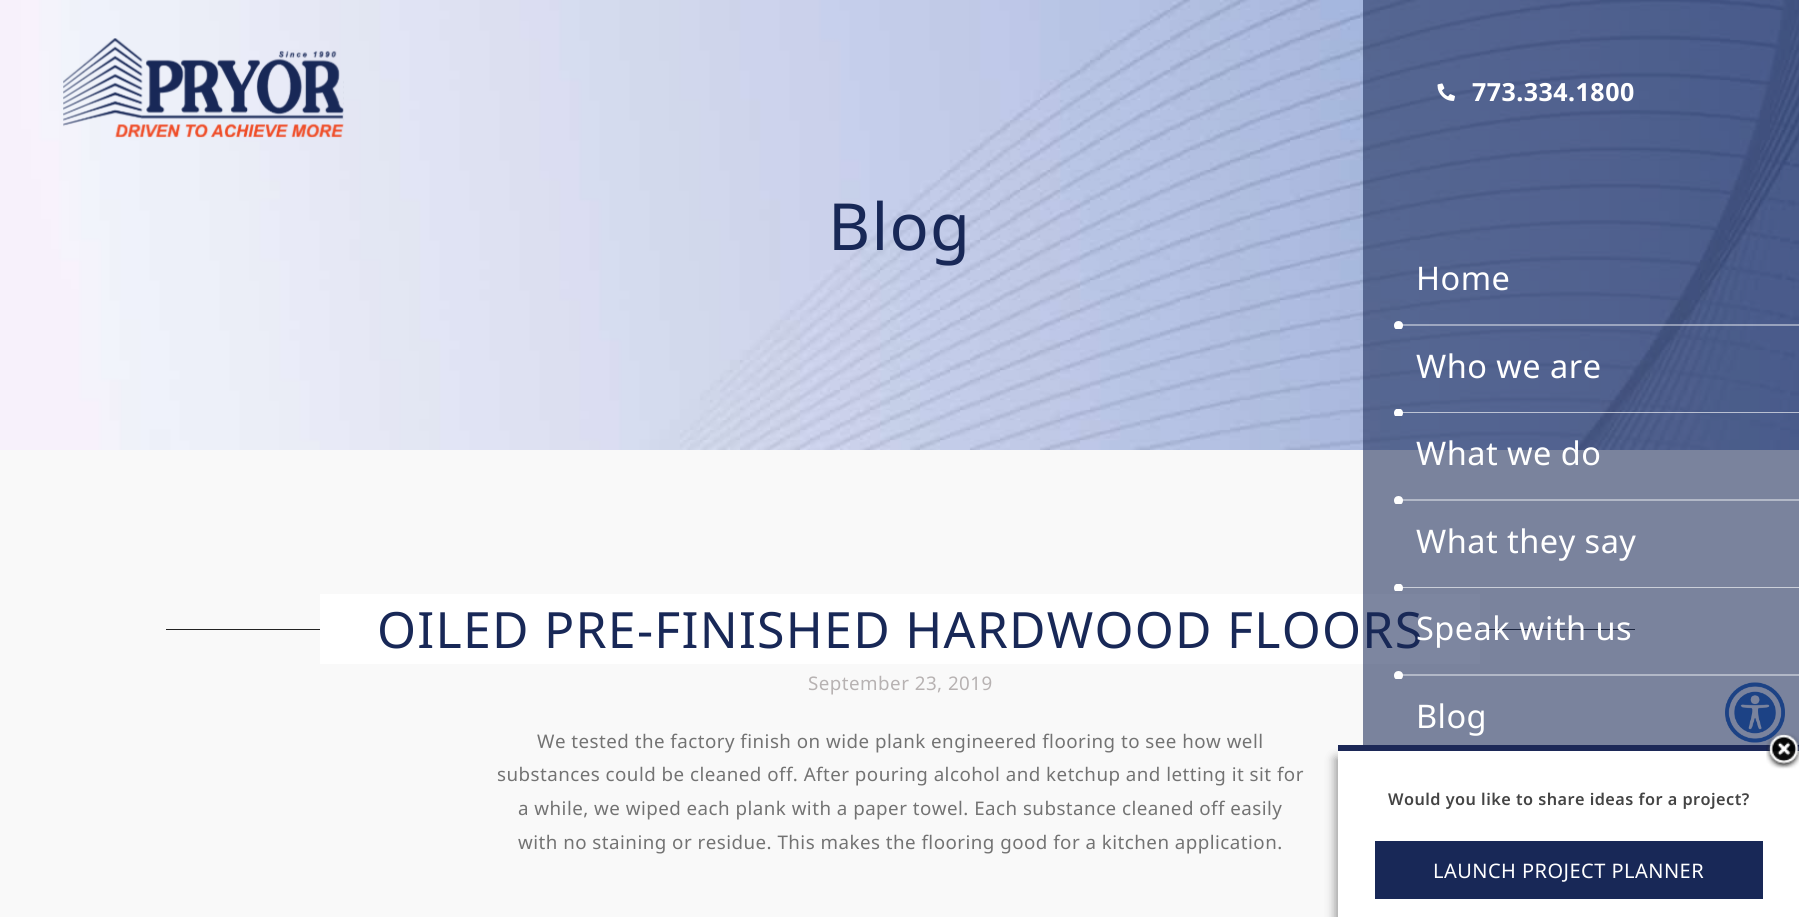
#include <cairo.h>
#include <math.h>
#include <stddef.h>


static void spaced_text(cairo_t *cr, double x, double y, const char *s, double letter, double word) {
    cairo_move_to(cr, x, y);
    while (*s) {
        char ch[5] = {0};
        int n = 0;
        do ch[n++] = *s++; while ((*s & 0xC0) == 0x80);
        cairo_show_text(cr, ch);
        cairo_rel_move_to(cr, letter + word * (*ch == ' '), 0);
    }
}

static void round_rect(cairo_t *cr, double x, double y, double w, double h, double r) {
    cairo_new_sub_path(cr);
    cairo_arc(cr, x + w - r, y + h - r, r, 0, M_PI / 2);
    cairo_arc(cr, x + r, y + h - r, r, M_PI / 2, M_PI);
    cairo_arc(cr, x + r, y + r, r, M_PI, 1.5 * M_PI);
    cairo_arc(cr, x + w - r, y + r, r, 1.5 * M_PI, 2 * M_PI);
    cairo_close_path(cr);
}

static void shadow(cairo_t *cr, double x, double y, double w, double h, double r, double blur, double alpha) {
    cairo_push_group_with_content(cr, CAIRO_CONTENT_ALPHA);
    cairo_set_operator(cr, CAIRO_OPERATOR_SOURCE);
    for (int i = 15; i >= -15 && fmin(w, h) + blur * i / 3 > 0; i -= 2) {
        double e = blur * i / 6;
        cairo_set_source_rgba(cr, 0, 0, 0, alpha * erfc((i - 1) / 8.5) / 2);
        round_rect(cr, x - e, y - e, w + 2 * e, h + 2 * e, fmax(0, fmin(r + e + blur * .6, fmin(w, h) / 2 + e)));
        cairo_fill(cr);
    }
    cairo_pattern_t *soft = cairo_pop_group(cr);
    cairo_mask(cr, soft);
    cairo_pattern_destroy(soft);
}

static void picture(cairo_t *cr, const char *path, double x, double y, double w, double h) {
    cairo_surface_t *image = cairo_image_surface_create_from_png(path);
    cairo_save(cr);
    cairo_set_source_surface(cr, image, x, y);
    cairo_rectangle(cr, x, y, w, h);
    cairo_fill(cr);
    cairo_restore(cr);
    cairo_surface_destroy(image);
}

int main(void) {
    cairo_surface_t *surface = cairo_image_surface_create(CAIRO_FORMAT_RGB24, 1799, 917);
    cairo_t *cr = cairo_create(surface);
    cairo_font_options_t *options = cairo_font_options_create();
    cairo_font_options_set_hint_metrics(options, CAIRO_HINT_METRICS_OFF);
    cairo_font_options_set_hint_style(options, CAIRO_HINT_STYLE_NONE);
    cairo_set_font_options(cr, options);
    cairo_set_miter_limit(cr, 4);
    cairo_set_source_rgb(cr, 0.973, 0.973, 0.973);
    cairo_paint(cr);
    picture(cr, "img3.png", 0, 0, 1799, 450);
    picture(cr, "img1.png", 63, 38, 281, 100);
    cairo_set_source_rgb(cr, 0.133, 0.133, 0.133);
    cairo_rectangle(cr, 166, 629, 1469, 1);
    cairo_fill(cr);
    cairo_set_source_rgb(cr, 1, 1, 1);
    cairo_rectangle(cr, 320, 594, 1160, 70);
    cairo_fill(cr);
    cairo_select_font_face(cr, "Noto Sans", CAIRO_FONT_SLANT_NORMAL, CAIRO_FONT_WEIGHT_NORMAL);
    cairo_set_font_size(cr, 50);
    cairo_set_source_rgb(cr, 0.094, 0.157, 0.341);
    spaced_text(cr, 377, 648, "OILED PRE-FINISHED HARDWOOD FLOORS", 1.25, 0);
    cairo_set_source_rgba(cr, 0.094, 0.157, 0.341, 0.56);
    cairo_rectangle(cr, 1363, 0, 436, 745);
    cairo_fill(cr);
    picture(cr, "img2.png", 1437, 83, 18, 18);
    cairo_select_font_face(cr, "Noto Sans", CAIRO_FONT_SLANT_NORMAL, CAIRO_FONT_WEIGHT_BOLD);
    cairo_set_font_size(cr, 25);
    cairo_set_source_rgb(cr, 1, 1, 1);
    spaced_text(cr, 1472, 101, "773.334.1800", 0.47, 0);
    cairo_select_font_face(cr, "Noto Sans", CAIRO_FONT_SLANT_NORMAL, CAIRO_FONT_WEIGHT_NORMAL);
    cairo_set_font_size(cr, 65);
    cairo_set_source_rgb(cr, 0.094, 0.157, 0.341);
    spaced_text(cr, 828, 250, "Blog", 1.25, 0);
    cairo_set_font_size(cr, 18.75);
    cairo_set_source_rgb(cr, 0.718, 0.698, 0.698);
    spaced_text(cr, 808, 690, "September 23, 2019", 0.47, 0);
    cairo_set_source_rgb(cr, 0.451, 0.451, 0.451);
    spaced_text(cr, 537, 748, "We tested the factory finish on wide plank engineered flooring to see how well", 0.47, 0);
    spaced_text(cr, 497, 781, "substances could be cleaned off. After pouring alcohol and ketchup and letting it sit for", 0.47, 0);
    spaced_text(cr, 518, 815, "a while, we wiped each plank with a paper towel. Each substance cleaned off easily", 0.47, 0);
    spaced_text(cr, 518, 849, "with no staining or residue. This makes the flooring good for a kitchen application.", 0.47, 0);
    cairo_set_font_size(cr, 32.5);
    cairo_set_source_rgb(cr, 1, 1, 1);
    spaced_text(cr, 1416, 290, "Home", 0.47, 0);
    cairo_new_path(cr);
    cairo_move_to(cr, 1398, 325);
    cairo_line_to(cr, 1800, 325);
    cairo_set_source_rgba(cr, 1, 1, 1, 0.61);
    cairo_set_line_width(cr, 1.4);
    cairo_stroke(cr);
    cairo_save(cr);
    cairo_rectangle(cr, 1394, 321, 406, 8);
    cairo_clip(cr);
    cairo_set_source_rgb(cr, 1, 1, 1);
    cairo_arc(cr, 1398.5, 325.5, 4.5, 0, 2 * M_PI);
    cairo_fill(cr);
    cairo_restore(cr);
    cairo_set_source_rgb(cr, 1, 1, 1);
    spaced_text(cr, 1416, 378, "Who we are", 0.47, 0);
    cairo_set_source_rgba(cr, 1, 1, 1, 0.61);
    cairo_rectangle(cr, 1398, 412, 401, 1);
    cairo_fill(cr);
    cairo_save(cr);
    cairo_rectangle(cr, 1394, 409, 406, 7);
    cairo_clip(cr);
    cairo_set_source_rgb(cr, 1, 1, 1);
    cairo_arc(cr, 1398.5, 413, 4.5, 0, 2 * M_PI);
    cairo_fill(cr);
    cairo_restore(cr);
    cairo_set_source_rgb(cr, 1, 1, 1);
    spaced_text(cr, 1416, 465, "What we do", 0.47, 0);
    cairo_new_path(cr);
    cairo_move_to(cr, 1398, 500);
    cairo_line_to(cr, 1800, 500);
    cairo_set_source_rgb(cr, 0.796, 0.812, 0.851);
    cairo_stroke(cr);
    cairo_save(cr);
    cairo_rectangle(cr, 1394, 496, 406, 8);
    cairo_clip(cr);
    cairo_set_source_rgb(cr, 1, 1, 1);
    cairo_arc(cr, 1398.5, 500.5, 4.5, 0, 2 * M_PI);
    cairo_fill(cr);
    cairo_restore(cr);
    cairo_set_source_rgb(cr, 1, 1, 1);
    spaced_text(cr, 1416, 553, "What they say", 0.47, 0);
    cairo_set_source_rgb(cr, 0.796, 0.812, 0.851);
    cairo_rectangle(cr, 1398, 587, 401, 1);
    cairo_fill(cr);
    cairo_save(cr);
    cairo_rectangle(cr, 1394, 584, 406, 7);
    cairo_clip(cr);
    cairo_set_source_rgb(cr, 1, 1, 1);
    cairo_arc(cr, 1398.5, 588, 4.5, 0, 2 * M_PI);
    cairo_fill(cr);
    cairo_restore(cr);
    cairo_set_source_rgb(cr, 1, 1, 1);
    spaced_text(cr, 1416, 640, "Speak with us", 0.47, 0);
    cairo_new_path(cr);
    cairo_move_to(cr, 1398, 675);
    cairo_line_to(cr, 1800, 675);
    cairo_set_source_rgb(cr, 0.796, 0.812, 0.851);
    cairo_stroke(cr);
    cairo_save(cr);
    cairo_rectangle(cr, 1394, 671, 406, 8);
    cairo_clip(cr);
    cairo_set_source_rgb(cr, 1, 1, 1);
    cairo_arc(cr, 1398.5, 675.5, 4.5, 0, 2 * M_PI);
    cairo_fill(cr);
    cairo_restore(cr);
    cairo_set_source_rgb(cr, 1, 1, 1);
    spaced_text(cr, 1416, 728, "Blog", 0.47, 0);
    cairo_set_source_rgb(cr, 0, 0, 0);
    shadow(cr, 1335, 758, 455, 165, 0, 5, 0.38);
    cairo_set_source_rgb(cr, 1, 1, 1);
    cairo_rectangle(cr, 1338, 751, 461, 166);
    cairo_fill(cr);
    cairo_set_source_rgb(cr, 0.11, 0.157, 0.341);
    cairo_rectangle(cr, 1338, 745, 461, 6);
    cairo_fill(cr);
    picture(cr, "img5.png", 1766, 733, 33, 36);
    picture(cr, "img4.png", 1725, 682, 60, 61);
    cairo_select_font_face(cr, "Noto Sans SemiBold", CAIRO_FONT_SLANT_NORMAL, CAIRO_FONT_WEIGHT_NORMAL);
    cairo_set_font_size(cr, 16.25);
    cairo_set_source_rgb(cr, 0.267, 0.267, 0.267);
    spaced_text(cr, 1388, 805, "Would you like to share ideas for a project?", 0.47, 0);
    cairo_set_source_rgb(cr, 0.094, 0.157, 0.341);
    cairo_rectangle(cr, 1375, 841, 388, 58);
    cairo_fill(cr);
    cairo_select_font_face(cr, "Noto Sans", CAIRO_FONT_SLANT_NORMAL, CAIRO_FONT_WEIGHT_NORMAL);
    cairo_set_font_size(cr, 20);
    cairo_set_source_rgb(cr, 1, 1, 1);
    spaced_text(cr, 1433, 878, "LAUNCH PROJECT PLANNER", 0.47, 0);
    cairo_surface_write_to_png(surface, "page.png");
    cairo_font_options_destroy(options);
    cairo_destroy(cr);
    cairo_surface_destroy(surface);
    return 0;
}
